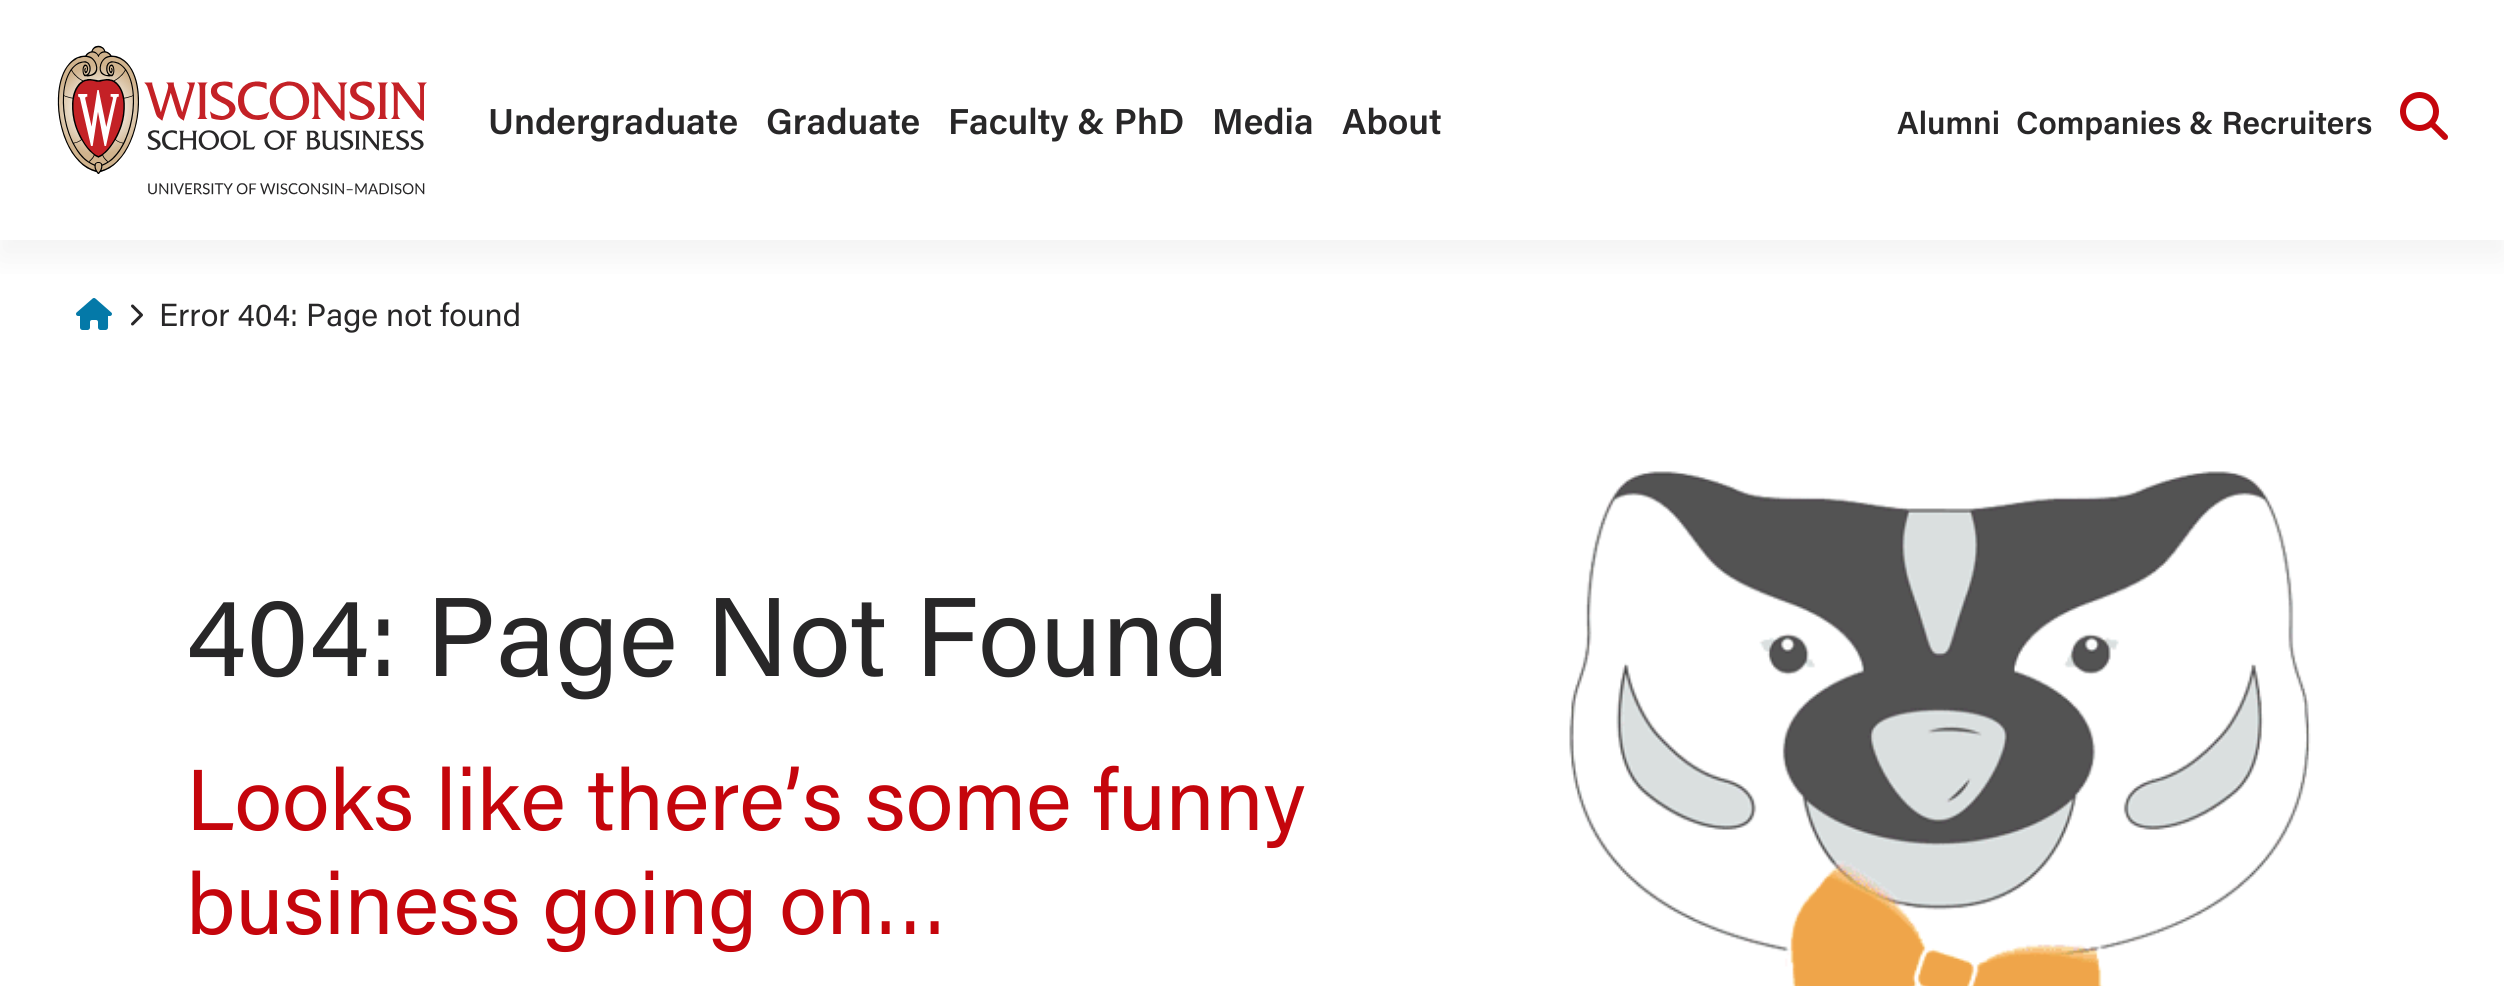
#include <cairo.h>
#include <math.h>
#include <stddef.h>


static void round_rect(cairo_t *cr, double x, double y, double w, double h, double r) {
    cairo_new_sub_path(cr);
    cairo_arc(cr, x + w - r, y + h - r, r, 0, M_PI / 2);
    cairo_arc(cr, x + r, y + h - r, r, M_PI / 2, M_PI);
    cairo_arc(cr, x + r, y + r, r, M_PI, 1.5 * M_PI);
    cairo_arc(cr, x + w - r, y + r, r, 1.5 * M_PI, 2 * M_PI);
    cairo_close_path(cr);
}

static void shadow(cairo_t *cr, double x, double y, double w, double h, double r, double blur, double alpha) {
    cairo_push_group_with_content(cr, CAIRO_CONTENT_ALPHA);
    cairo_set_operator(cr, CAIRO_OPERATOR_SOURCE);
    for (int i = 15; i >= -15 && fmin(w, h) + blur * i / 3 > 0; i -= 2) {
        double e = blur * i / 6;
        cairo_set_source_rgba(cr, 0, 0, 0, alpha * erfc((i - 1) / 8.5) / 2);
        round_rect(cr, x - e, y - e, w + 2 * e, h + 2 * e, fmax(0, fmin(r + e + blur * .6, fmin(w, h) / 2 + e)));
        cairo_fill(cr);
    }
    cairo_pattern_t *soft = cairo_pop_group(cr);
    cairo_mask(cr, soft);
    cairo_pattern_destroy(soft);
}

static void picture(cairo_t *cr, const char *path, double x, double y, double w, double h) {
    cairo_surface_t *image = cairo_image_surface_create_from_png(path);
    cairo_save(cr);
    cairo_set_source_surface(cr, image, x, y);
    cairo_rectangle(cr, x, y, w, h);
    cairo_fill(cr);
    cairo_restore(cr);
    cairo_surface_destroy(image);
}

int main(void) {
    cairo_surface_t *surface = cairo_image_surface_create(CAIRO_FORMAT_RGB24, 2504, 986);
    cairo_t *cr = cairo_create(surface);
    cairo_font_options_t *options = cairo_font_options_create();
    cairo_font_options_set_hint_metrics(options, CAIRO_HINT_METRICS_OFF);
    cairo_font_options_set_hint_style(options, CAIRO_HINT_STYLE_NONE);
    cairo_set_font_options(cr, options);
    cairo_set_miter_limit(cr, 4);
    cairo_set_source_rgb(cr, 1, 1, 1);
    cairo_paint(cr);
    cairo_save(cr);
    cairo_rectangle(cr, 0, 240, 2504, 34);
    cairo_clip(cr);
    cairo_set_source_rgb(cr, 0.678, 0.678, 0.678);
    shadow(cr, 0, 16, 2504, 240, 0, 16, 0.15);
    cairo_restore(cr);
    picture(cr, "img1.png", 57, 45, 370, 150);
    cairo_select_font_face(cr, "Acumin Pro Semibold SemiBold", CAIRO_FONT_SLANT_NORMAL, CAIRO_FONT_WEIGHT_NORMAL);
    cairo_set_font_size(cr, 36);
    cairo_set_source_rgb(cr, 0.157, 0.153, 0.157);
    cairo_move_to(cr, 488, 134);
    cairo_show_text(cr, "Undergraduate");
    cairo_move_to(cr, 766, 134);
    cairo_show_text(cr, "Graduate");
    cairo_move_to(cr, 948, 134);
    cairo_show_text(cr, "Faculty & PhD");
    cairo_move_to(cr, 1212, 134);
    cairo_show_text(cr, "Media");
    cairo_move_to(cr, 1342, 134);
    cairo_show_text(cr, "About");
    cairo_set_font_size(cr, 32);
    cairo_move_to(cr, 1897, 134);
    cairo_show_text(cr, "Alumni");
    cairo_move_to(cr, 2016, 134);
    cairo_show_text(cr, "Companies & Recruiters");
    picture(cr, "img2.png", 2400, 92, 48, 48);
    picture(cr, "img3.png", 76, 298, 36, 32);
    picture(cr, "img4.png", 131, 304, 12, 22);
    cairo_select_font_face(cr, "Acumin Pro", CAIRO_FONT_SLANT_NORMAL, CAIRO_FONT_WEIGHT_NORMAL);
    cairo_move_to(cr, 159, 326);
    cairo_show_text(cr, "Error 404: Page not found");
    cairo_set_font_size(cr, 112);
    cairo_move_to(cr, 186, 676);
    cairo_show_text(cr, "404: Page Not Found");
    cairo_set_font_size(cr, 86.4);
    cairo_set_source_rgb(cr, 0.773, 0.02, 0.047);
    cairo_move_to(cr, 186, 830);
    cairo_show_text(cr, "Looks like there’s some funny");
    cairo_move_to(cr, 186, 934);
    cairo_show_text(cr, "business going on…");
    picture(cr, "img5.png", 1569, 471, 742, 515);
    cairo_surface_write_to_png(surface, "page.png");
    cairo_font_options_destroy(options);
    cairo_destroy(cr);
    cairo_surface_destroy(surface);
    return 0;
}
